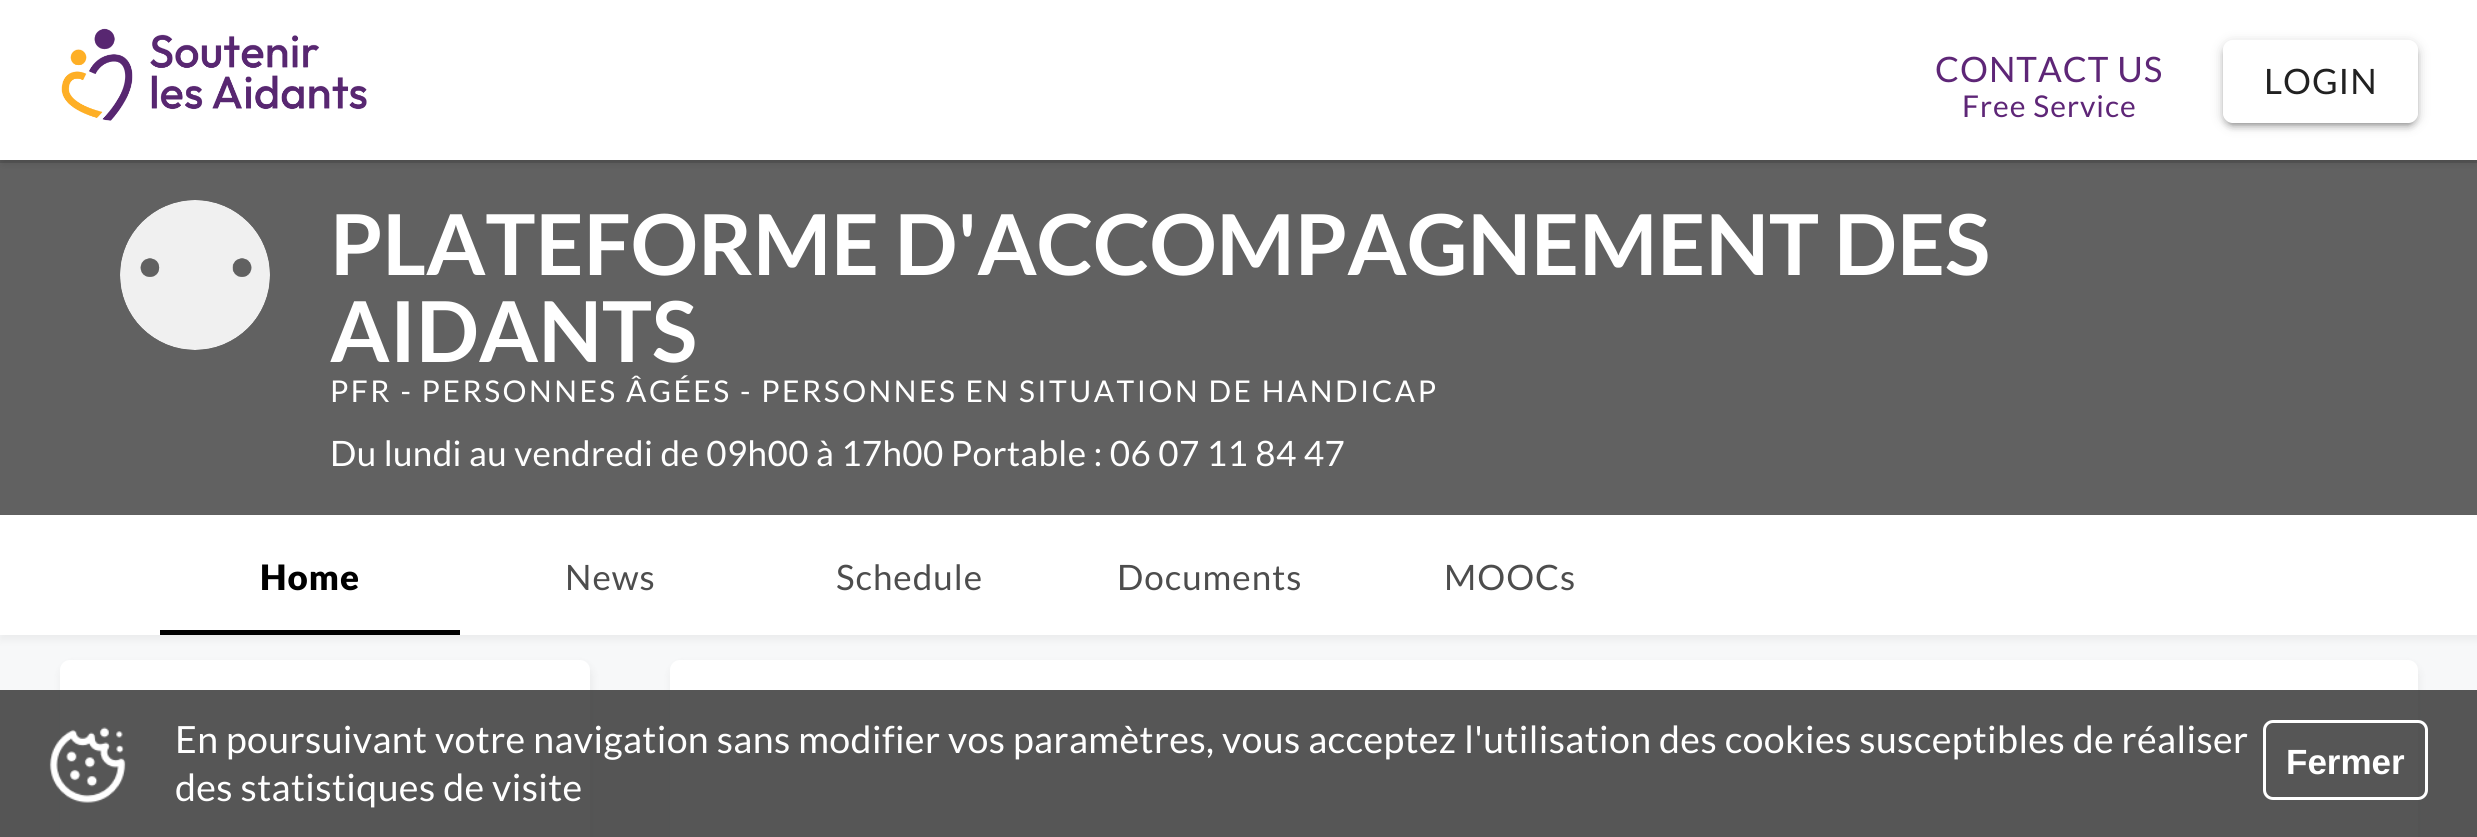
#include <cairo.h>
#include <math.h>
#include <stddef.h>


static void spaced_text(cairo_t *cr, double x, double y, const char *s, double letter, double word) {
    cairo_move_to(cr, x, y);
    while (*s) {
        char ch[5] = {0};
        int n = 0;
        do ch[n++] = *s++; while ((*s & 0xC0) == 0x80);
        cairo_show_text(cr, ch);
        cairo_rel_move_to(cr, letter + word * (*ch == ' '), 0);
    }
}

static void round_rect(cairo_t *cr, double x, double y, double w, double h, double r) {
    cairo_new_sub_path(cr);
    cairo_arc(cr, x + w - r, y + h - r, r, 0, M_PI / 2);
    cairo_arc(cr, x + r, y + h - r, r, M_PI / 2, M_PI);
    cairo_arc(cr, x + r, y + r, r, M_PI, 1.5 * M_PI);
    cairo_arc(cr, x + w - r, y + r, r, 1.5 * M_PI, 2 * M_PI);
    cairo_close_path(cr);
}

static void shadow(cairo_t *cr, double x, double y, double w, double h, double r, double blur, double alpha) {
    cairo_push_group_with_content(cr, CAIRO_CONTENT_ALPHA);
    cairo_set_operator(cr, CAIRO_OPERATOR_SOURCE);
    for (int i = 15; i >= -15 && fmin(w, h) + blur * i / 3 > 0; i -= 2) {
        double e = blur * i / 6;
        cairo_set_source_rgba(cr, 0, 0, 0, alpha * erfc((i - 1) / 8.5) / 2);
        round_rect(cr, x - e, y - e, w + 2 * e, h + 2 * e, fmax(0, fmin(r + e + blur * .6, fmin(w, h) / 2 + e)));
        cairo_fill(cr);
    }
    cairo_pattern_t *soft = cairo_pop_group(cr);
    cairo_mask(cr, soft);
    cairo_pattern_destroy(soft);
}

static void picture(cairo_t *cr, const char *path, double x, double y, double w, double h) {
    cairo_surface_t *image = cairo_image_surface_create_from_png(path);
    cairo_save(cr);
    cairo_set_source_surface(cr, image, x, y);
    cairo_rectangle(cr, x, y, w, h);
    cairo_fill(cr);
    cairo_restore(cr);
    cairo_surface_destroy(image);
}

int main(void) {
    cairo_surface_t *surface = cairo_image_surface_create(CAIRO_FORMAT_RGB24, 2477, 837);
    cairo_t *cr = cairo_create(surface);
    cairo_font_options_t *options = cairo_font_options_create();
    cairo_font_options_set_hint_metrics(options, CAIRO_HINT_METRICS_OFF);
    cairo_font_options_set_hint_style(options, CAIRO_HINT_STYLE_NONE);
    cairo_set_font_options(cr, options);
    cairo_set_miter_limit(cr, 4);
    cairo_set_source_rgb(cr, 0.965, 0.969, 0.973);
    cairo_paint(cr);
    cairo_set_source_rgb(cr, 0.333, 0.333, 0.333);
    cairo_new_path(cr);
    cairo_move_to(cr, 0, 160);
    cairo_line_to(cr, 0, 163);
    cairo_line_to(cr, 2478, 163);
    cairo_line_to(cr, 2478, 3);
    cairo_line_to(cr, 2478, 160);
    cairo_close_path(cr);
    cairo_fill(cr);
    cairo_set_source_rgb(cr, 0.38, 0.38, 0.38);
    cairo_rectangle(cr, 0, 163, 2477, 352);
    cairo_fill(cr);
    cairo_set_source_rgb(cr, 0, 0, 0);
    shadow(cr, 3, 8, 2472, 155, 0, 4, 0.12);
    cairo_set_source_rgb(cr, 1, 1, 1);
    cairo_rectangle(cr, 0, 0, 2477, 160);
    cairo_fill(cr);
    picture(cr, "img1.png", 61, 28, 306, 93);
    cairo_select_font_face(cr, "Lato", CAIRO_FONT_SLANT_NORMAL, CAIRO_FONT_WEIGHT_NORMAL);
    cairo_set_font_size(cr, 35);
    cairo_set_source_rgb(cr, 0.369, 0.149, 0.467);
    spaced_text(cr, 1935, 82, "CONTACT US", 1, 0);
    cairo_set_font_size(cr, 30);
    spaced_text(cr, 1962, 117, "Free Service", 1, 0);
    cairo_save(cr);
    cairo_set_fill_rule(cr, CAIRO_FILL_RULE_EVEN_ODD);
    cairo_new_path(cr);
    cairo_move_to(cr, 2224, 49);
    cairo_line_to(cr, 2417, 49);
    cairo_line_to(cr, 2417, 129);
    cairo_line_to(cr, 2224, 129);
    cairo_close_path(cr);
    cairo_move_to(cr, 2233, 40);
    cairo_line_to(cr, 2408, 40);
    cairo_curve_to(cr, 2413.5, 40, 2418, 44.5, 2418, 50);
    cairo_line_to(cr, 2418, 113);
    cairo_curve_to(cr, 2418, 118.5, 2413.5, 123, 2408, 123);
    cairo_line_to(cr, 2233, 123);
    cairo_curve_to(cr, 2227.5, 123, 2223, 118.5, 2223, 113);
    cairo_line_to(cr, 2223, 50);
    cairo_curve_to(cr, 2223, 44.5, 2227.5, 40, 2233, 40);
    cairo_close_path(cr);
    cairo_clip(cr);
    cairo_set_source_rgb(cr, 0, 0, 0);
    shadow(cr, 2228, 53, 185, 72, 5, 1, 0.12);
    cairo_restore(cr);
    cairo_save(cr);
    cairo_set_fill_rule(cr, CAIRO_FILL_RULE_EVEN_ODD);
    cairo_new_path(cr);
    cairo_move_to(cr, 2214, 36);
    cairo_line_to(cr, 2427, 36);
    cairo_line_to(cr, 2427, 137);
    cairo_line_to(cr, 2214, 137);
    cairo_close_path(cr);
    cairo_move_to(cr, 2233, 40);
    cairo_line_to(cr, 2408, 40);
    cairo_curve_to(cr, 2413.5, 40, 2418, 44.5, 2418, 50);
    cairo_line_to(cr, 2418, 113);
    cairo_curve_to(cr, 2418, 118.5, 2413.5, 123, 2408, 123);
    cairo_line_to(cr, 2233, 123);
    cairo_curve_to(cr, 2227.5, 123, 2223, 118.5, 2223, 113);
    cairo_line_to(cr, 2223, 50);
    cairo_curve_to(cr, 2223, 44.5, 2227.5, 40, 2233, 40);
    cairo_close_path(cr);
    cairo_clip(cr);
    cairo_set_source_rgb(cr, 0, 0, 0);
    shadow(cr, 2223, 45, 195, 83, 10, 2.5, 0.14);
    cairo_restore(cr);
    cairo_save(cr);
    cairo_set_fill_rule(cr, CAIRO_FILL_RULE_EVEN_ODD);
    cairo_new_path(cr);
    cairo_move_to(cr, 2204, 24);
    cairo_line_to(cr, 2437, 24);
    cairo_line_to(cr, 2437, 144);
    cairo_line_to(cr, 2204, 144);
    cairo_close_path(cr);
    cairo_move_to(cr, 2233, 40);
    cairo_line_to(cr, 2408, 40);
    cairo_curve_to(cr, 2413.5, 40, 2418, 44.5, 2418, 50);
    cairo_line_to(cr, 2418, 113);
    cairo_curve_to(cr, 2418, 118.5, 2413.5, 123, 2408, 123);
    cairo_line_to(cr, 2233, 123);
    cairo_curve_to(cr, 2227.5, 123, 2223, 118.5, 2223, 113);
    cairo_line_to(cr, 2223, 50);
    cairo_curve_to(cr, 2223, 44.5, 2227.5, 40, 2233, 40);
    cairo_close_path(cr);
    cairo_clip(cr);
    cairo_set_source_rgb(cr, 0, 0, 0);
    shadow(cr, 2223, 43, 195, 82, 10, 6, 0.2);
    cairo_restore(cr);
    cairo_set_font_size(cr, 35);
    cairo_set_source_rgb(cr, 0.129, 0.129, 0.129);
    spaced_text(cr, 2264, 94, "LOGIN", 1, 0);
    picture(cr, "img2.png", 120, 200, 150, 150);
    cairo_select_font_face(cr, "Lato", CAIRO_FONT_SLANT_NORMAL, CAIRO_FONT_WEIGHT_BOLD);
    cairo_set_font_size(cr, 84);
    cairo_set_source_rgb(cr, 1, 1, 1);
    spaced_text(cr, 330, 275, "PLATEFORME D'ACCOMPAGNEMENT DES", 0, -1);
    cairo_move_to(cr, 330, 362);
    cairo_show_text(cr, "AIDANTS");
    cairo_select_font_face(cr, "Lato", CAIRO_FONT_SLANT_NORMAL, CAIRO_FONT_WEIGHT_NORMAL);
    cairo_set_font_size(cr, 30);
    spaced_text(cr, 330, 402, "PFR - PERSONNES ÂGÉES - PERSONNES EN SITUATION DE HANDICAP", 2.5, 0);
    cairo_set_font_size(cr, 35);
    spaced_text(cr, 330, 466, "Du lundi au vendredi de 09h00 à 17h00 Portable : 06 07 11 84 47", 0.37, 0);
    cairo_set_source_rgb(cr, 0, 0, 0);
    shadow(cr, 0, 518, 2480, 122, 0, 4, 0.05);
    cairo_set_source_rgb(cr, 1, 1, 1);
    cairo_rectangle(cr, 0, 515, 2477, 120);
    cairo_fill(cr);
    cairo_select_font_face(cr, "Lato Black", CAIRO_FONT_SLANT_NORMAL, CAIRO_FONT_WEIGHT_NORMAL);
    cairo_set_source_rgb(cr, 0, 0, 0);
    spaced_text(cr, 260, 590, "Home", 1, 0);
    cairo_select_font_face(cr, "Lato", CAIRO_FONT_SLANT_NORMAL, CAIRO_FONT_WEIGHT_NORMAL);
    cairo_set_source_rgb(cr, 0.302, 0.302, 0.302);
    spaced_text(cr, 565, 590, "News", 1, 0);
    spaced_text(cr, 836, 590, "Schedule", 1, 0);
    spaced_text(cr, 1117, 590, "Documents", 1, 0);
    spaced_text(cr, 1444, 590, "MOOCs", 1, 0);
    cairo_set_source_rgb(cr, 0, 0, 0);
    cairo_rectangle(cr, 160, 630, 300, 5);
    cairo_fill(cr);
    cairo_set_source_rgb(cr, 0, 0, 0);
    shadow(cr, 60, 663, 533, 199, 13, 4, 0.05);
    cairo_set_source_rgb(cr, 1, 1, 1);
    round_rect(cr, 60, 660, 530, 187, 10);
    cairo_fill(cr);
    cairo_set_source_rgb(cr, 0, 0, 0);
    shadow(cr, 670, 663, 1750, 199, 13, 4, 0.05);
    cairo_set_source_rgb(cr, 1, 1, 1);
    round_rect(cr, 670, 660, 1748, 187, 10);
    cairo_fill(cr);
    cairo_set_source_rgba(cr, 0.251, 0.251, 0.251, 0.88);
    cairo_rectangle(cr, 0, 690, 2477, 147);
    cairo_fill(cr);
    picture(cr, "img3.png", 49, 727, 77, 76);
    cairo_set_font_size(cr, 37.5);
    cairo_set_source_rgb(cr, 1, 1, 1);
    spaced_text(cr, 175, 753, "En poursuivant votre navigation sans modifier vos paramètres, vous acceptez l'utilisation des cookies susceptibles de réaliser", 0.37, 0);
    spaced_text(cr, 175, 801, "des statistiques de visite", 0.37, 0);
    round_rect(cr, 2264.5, 721.5, 162, 77, 8.5);
    cairo_set_line_width(cr, 3);
    cairo_stroke(cr);
    cairo_select_font_face(cr, "Liberation Sans", CAIRO_FONT_SLANT_NORMAL, CAIRO_FONT_WEIGHT_BOLD);
    cairo_set_font_size(cr, 35);
    cairo_move_to(cr, 2286, 774);
    cairo_show_text(cr, "Fermer");
    cairo_surface_write_to_png(surface, "page.png");
    cairo_font_options_destroy(options);
    cairo_destroy(cr);
    cairo_surface_destroy(surface);
    return 0;
}
